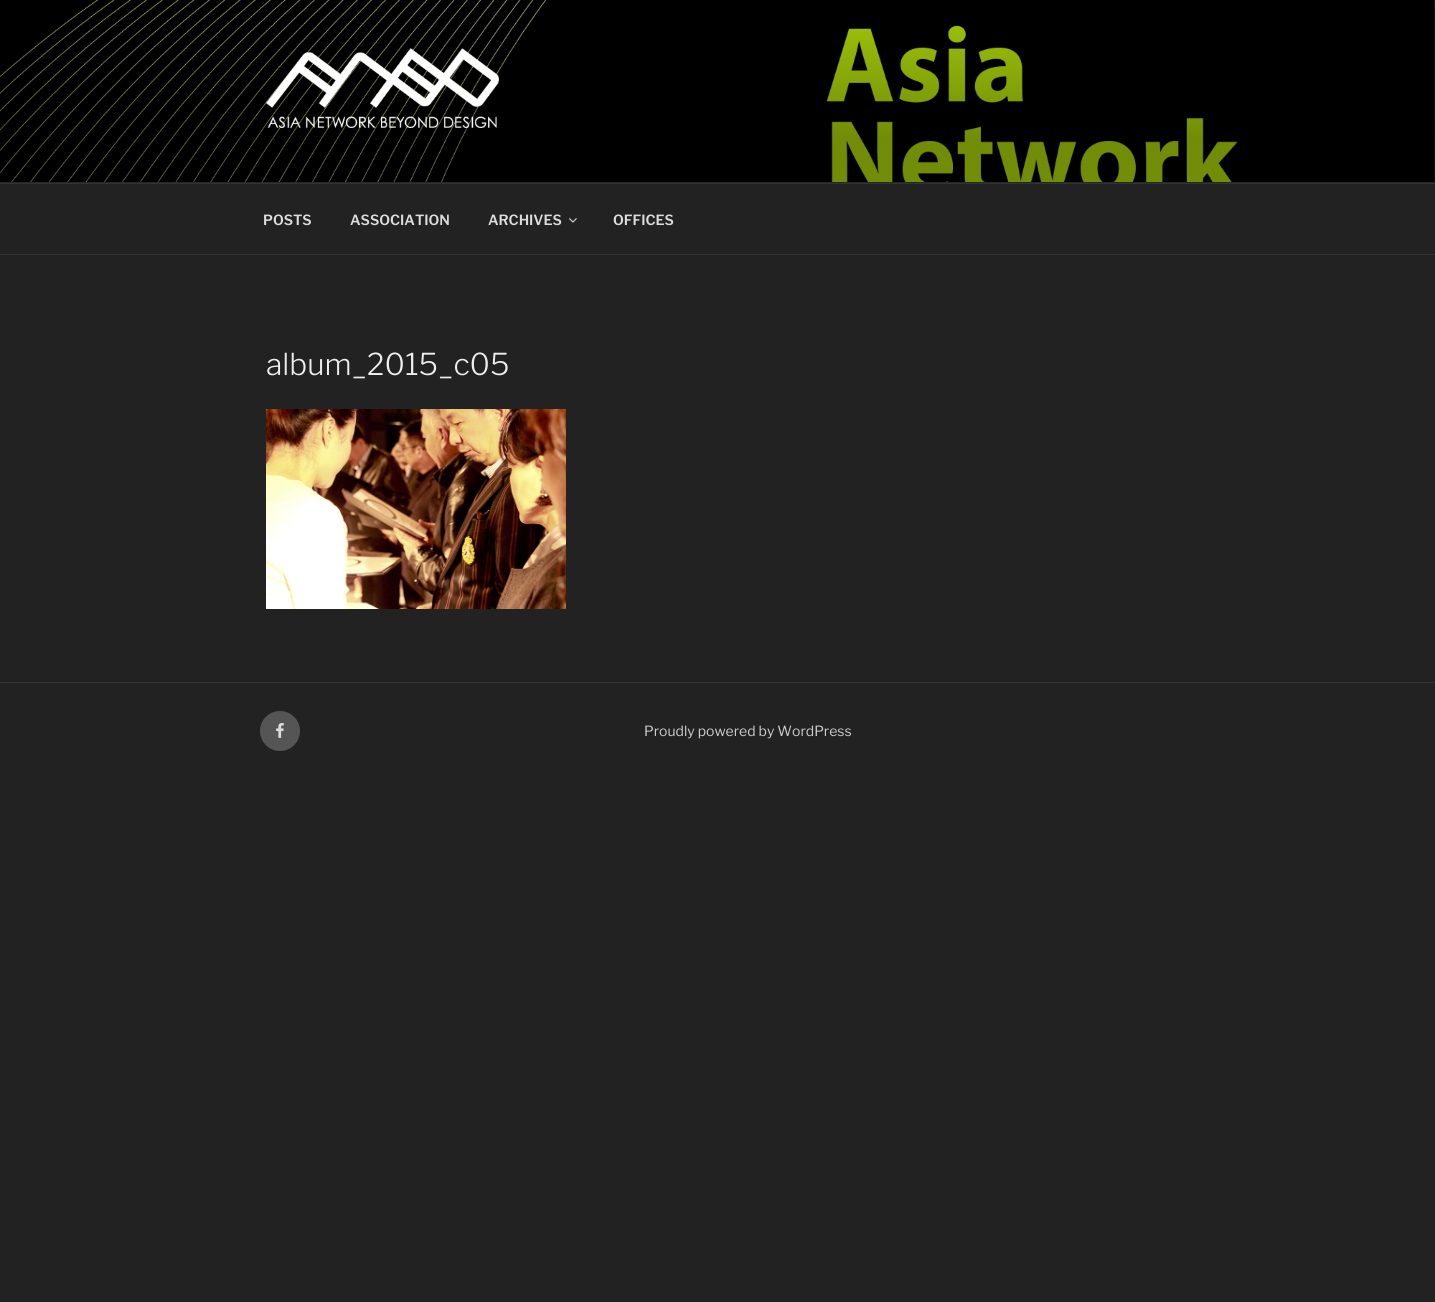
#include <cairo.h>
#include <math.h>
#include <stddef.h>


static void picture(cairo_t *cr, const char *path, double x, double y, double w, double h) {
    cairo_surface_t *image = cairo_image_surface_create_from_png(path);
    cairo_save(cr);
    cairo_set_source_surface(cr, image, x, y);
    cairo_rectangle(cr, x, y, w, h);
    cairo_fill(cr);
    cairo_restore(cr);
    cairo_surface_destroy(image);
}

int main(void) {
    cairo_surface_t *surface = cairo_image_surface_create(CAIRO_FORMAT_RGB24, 1435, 1302);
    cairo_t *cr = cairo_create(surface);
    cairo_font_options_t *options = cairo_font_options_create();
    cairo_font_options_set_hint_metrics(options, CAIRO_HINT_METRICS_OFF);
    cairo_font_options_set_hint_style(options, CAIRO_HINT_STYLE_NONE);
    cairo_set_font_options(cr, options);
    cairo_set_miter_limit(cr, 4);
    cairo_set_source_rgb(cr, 0.133, 0.133, 0.133);
    cairo_paint(cr);
    cairo_set_source_rgb(cr, 0.149, 0.149, 0.149);
    cairo_rectangle(cr, 0, 182, 1435, 1);
    cairo_fill(cr);
    picture(cr, "img1.png", 0, 0, 1435, 182);
    picture(cr, "img2.png", 266, 48, 233, 80);
    cairo_set_source_rgb(cr, 0.2, 0.2, 0.2);
    cairo_rectangle(cr, 0, 183, 1435, 1);
    cairo_fill(cr);
    cairo_rectangle(cr, 0, 254, 1435, 1);
    cairo_fill(cr);
    cairo_select_font_face(cr, "Libre Franklin SemiBold", CAIRO_FONT_SLANT_NORMAL, CAIRO_FONT_WEIGHT_NORMAL);
    cairo_set_font_size(cr, 14);
    cairo_set_source_rgb(cr, 0.867, 0.867, 0.867);
    cairo_move_to(cr, 263, 225);
    cairo_show_text(cr, "POSTS");
    cairo_move_to(cr, 350, 225);
    cairo_show_text(cr, "ASSOCIATION");
    cairo_move_to(cr, 488, 225);
    cairo_show_text(cr, "ARCHIVES");
    picture(cr, "img3.png", 569, 218, 8, 5);
    cairo_move_to(cr, 613, 225);
    cairo_show_text(cr, "OFFICES");
    cairo_select_font_face(cr, "Libre Franklin Light", CAIRO_FONT_SLANT_NORMAL, CAIRO_FONT_WEIGHT_NORMAL);
    cairo_set_font_size(cr, 30);
    cairo_set_source_rgb(cr, 0.933, 0.933, 0.933);
    cairo_move_to(cr, 266, 375);
    cairo_show_text(cr, "album_2015_c05");
    picture(cr, "img4.png", 266, 409, 300, 200);
    cairo_set_source_rgb(cr, 0.2, 0.2, 0.2);
    cairo_rectangle(cr, 0, 682, 1435, 1);
    cairo_fill(cr);
    cairo_set_source_rgb(cr, 0.333, 0.333, 0.333);
    cairo_arc(cr, 280, 731, 20, 0, 2 * M_PI);
    cairo_fill(cr);
    picture(cr, "img5.png", 276, 723, 8, 15);
    cairo_select_font_face(cr, "Libre Franklin", CAIRO_FONT_SLANT_NORMAL, CAIRO_FONT_WEIGHT_NORMAL);
    cairo_set_font_size(cr, 14);
    cairo_set_source_rgb(cr, 0.8, 0.8, 0.8);
    cairo_move_to(cr, 644, 736);
    cairo_show_text(cr, "Proudly powered by WordPress");
    cairo_surface_write_to_png(surface, "page.png");
    cairo_font_options_destroy(options);
    cairo_destroy(cr);
    cairo_surface_destroy(surface);
    return 0;
}
